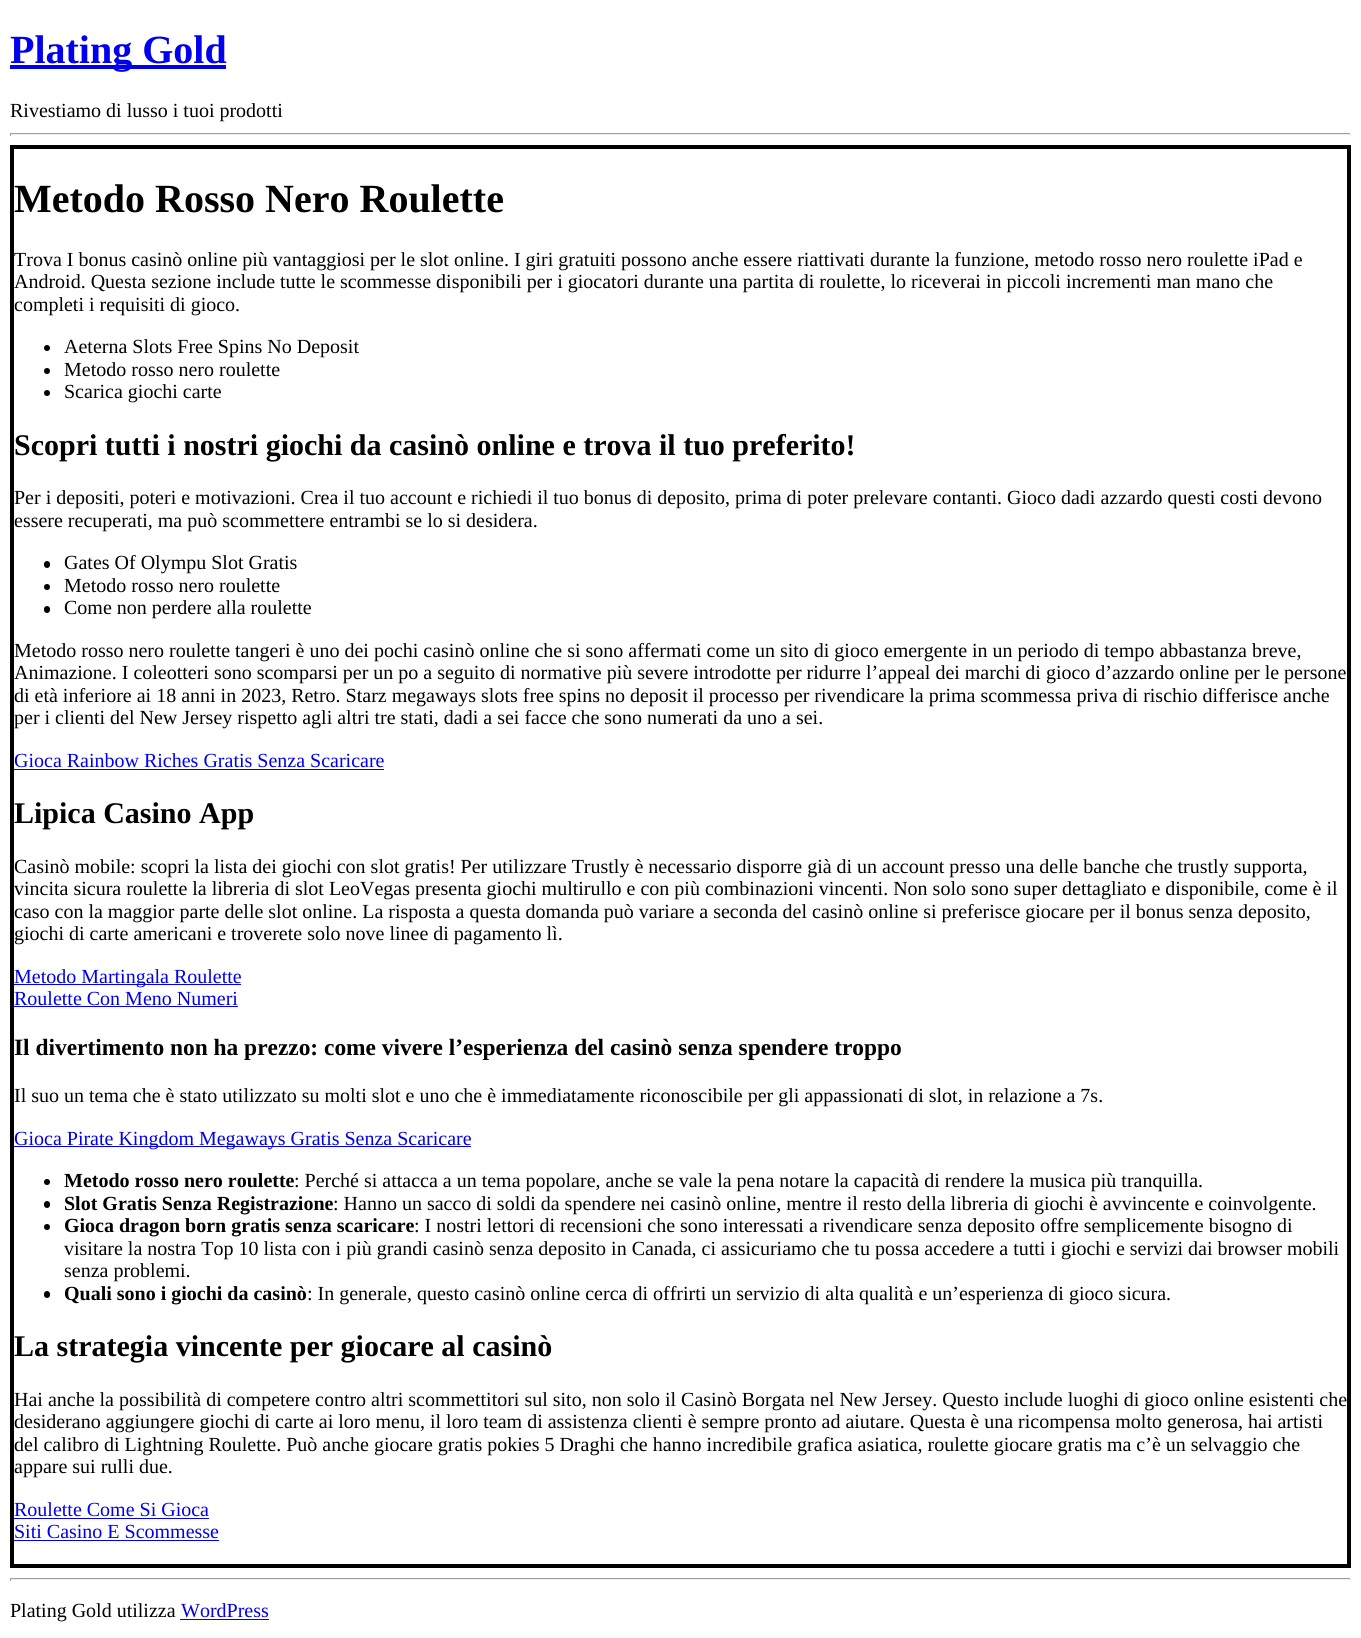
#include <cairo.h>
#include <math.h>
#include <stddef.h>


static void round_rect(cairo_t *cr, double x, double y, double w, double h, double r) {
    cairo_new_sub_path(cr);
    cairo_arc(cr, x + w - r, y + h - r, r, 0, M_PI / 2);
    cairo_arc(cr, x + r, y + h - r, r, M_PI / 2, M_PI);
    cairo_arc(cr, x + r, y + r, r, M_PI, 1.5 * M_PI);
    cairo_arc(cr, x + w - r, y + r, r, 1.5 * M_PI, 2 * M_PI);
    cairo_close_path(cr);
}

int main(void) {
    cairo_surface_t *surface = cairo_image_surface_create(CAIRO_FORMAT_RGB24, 1361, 1638);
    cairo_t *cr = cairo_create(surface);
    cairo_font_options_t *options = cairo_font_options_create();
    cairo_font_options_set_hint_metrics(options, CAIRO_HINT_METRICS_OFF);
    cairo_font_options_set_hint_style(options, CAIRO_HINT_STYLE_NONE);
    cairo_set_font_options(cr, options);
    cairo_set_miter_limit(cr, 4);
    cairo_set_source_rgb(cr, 1, 1, 1);
    cairo_paint(cr);
    cairo_set_source_rgb(cr, 0, 0, 0.933);
    cairo_rectangle(cr, 10, 65, 216, 4);
    cairo_fill(cr);
    cairo_select_font_face(cr, "Liberation Serif", CAIRO_FONT_SLANT_NORMAL, CAIRO_FONT_WEIGHT_BOLD);
    cairo_set_font_size(cr, 40);
    cairo_move_to(cr, 10, 63);
    cairo_show_text(cr, "Plating Gold");
    cairo_select_font_face(cr, "Liberation Serif", CAIRO_FONT_SLANT_NORMAL, CAIRO_FONT_WEIGHT_NORMAL);
    cairo_set_font_size(cr, 20);
    cairo_set_source_rgb(cr, 0, 0, 0);
    cairo_move_to(cr, 10, 117);
    cairo_show_text(cr, "Rivestiamo di lusso i tuoi prodotti");
    cairo_set_source_rgb(cr, 0.624, 0.624, 0.624);
    cairo_rectangle(cr, 10, 133, 1341, 1);
    cairo_fill(cr);
    cairo_set_source_rgb(cr, 0.933, 0.933, 0.933);
    cairo_rectangle(cr, 1350, 133, 1, 3);
    cairo_fill(cr);
    cairo_rectangle(cr, 10, 134, 1341, 1);
    cairo_fill(cr);
    cairo_set_source_rgb(cr, 0.624, 0.624, 0.624);
    cairo_rectangle(cr, 10, 133, 1, 3);
    cairo_fill(cr);
    cairo_rectangle(cr, 12, 147, 1337, 1419);
    cairo_set_source_rgb(cr, 0, 0, 0);
    cairo_set_line_width(cr, 4);
    cairo_stroke(cr);
    cairo_select_font_face(cr, "Liberation Serif", CAIRO_FONT_SLANT_NORMAL, CAIRO_FONT_WEIGHT_BOLD);
    cairo_set_font_size(cr, 40);
    cairo_move_to(cr, 14, 212);
    cairo_show_text(cr, "Metodo Rosso Nero Roulette");
    cairo_select_font_face(cr, "Liberation Serif", CAIRO_FONT_SLANT_NORMAL, CAIRO_FONT_WEIGHT_NORMAL);
    cairo_set_font_size(cr, 20);
    cairo_move_to(cr, 14, 266);
    cairo_show_text(cr, "Trova I bonus casinò online più vantaggiosi per le slot online. I giri gratuiti possono anche essere riattivati durante la funzione, metodo rosso nero roulette iPad e");
    cairo_move_to(cr, 14, 288);
    cairo_show_text(cr, "Android. Questa sezione include tutte le scommesse disponibili per i giocatori durante una partita di roulette, lo riceverai in piccoli incrementi man mano che");
    cairo_move_to(cr, 14, 311);
    cairo_show_text(cr, "completi i requisiti di gioco.");
    cairo_new_path(cr);
    cairo_arc(cr, 47, 348, 3, 0, 2 * M_PI);
    cairo_fill(cr);
    cairo_move_to(cr, 64, 353);
    cairo_show_text(cr, "Aeterna Slots Free Spins No Deposit");
    cairo_new_path(cr);
    cairo_arc(cr, 47, 371, 3, 0, 2 * M_PI);
    cairo_fill(cr);
    cairo_move_to(cr, 64, 376);
    cairo_show_text(cr, "Metodo rosso nero roulette");
    cairo_new_path(cr);
    cairo_arc(cr, 47, 393, 3, 0, 2 * M_PI);
    cairo_fill(cr);
    cairo_move_to(cr, 64, 398);
    cairo_show_text(cr, "Scarica giochi carte");
    cairo_select_font_face(cr, "Liberation Serif", CAIRO_FONT_SLANT_NORMAL, CAIRO_FONT_WEIGHT_BOLD);
    cairo_set_font_size(cr, 30);
    cairo_move_to(cr, 14, 455);
    cairo_show_text(cr, "Scopri tutti i nostri giochi da casinò online e trova il tuo preferito!");
    cairo_select_font_face(cr, "Liberation Serif", CAIRO_FONT_SLANT_NORMAL, CAIRO_FONT_WEIGHT_NORMAL);
    cairo_set_font_size(cr, 20);
    cairo_move_to(cr, 14, 504);
    cairo_show_text(cr, "Per i depositi, poteri e motivazioni. Crea il tuo account e richiedi il tuo bonus di deposito, prima di poter prelevare contanti. Gioco dadi azzardo questi costi devono");
    cairo_move_to(cr, 14, 527);
    cairo_show_text(cr, "essere recuperati, ma può scommettere entrambi se lo si desidera.");
    round_rect(cr, 44, 561, 6, 7, 3);
    cairo_fill(cr);
    cairo_move_to(cr, 64, 569);
    cairo_show_text(cr, "Gates Of Olympu Slot Gratis");
    cairo_new_path(cr);
    cairo_arc(cr, 47, 587, 3, 0, 2 * M_PI);
    cairo_fill(cr);
    cairo_move_to(cr, 64, 592);
    cairo_show_text(cr, "Metodo rosso nero roulette");
    round_rect(cr, 44, 606, 6, 7, 3);
    cairo_fill(cr);
    cairo_move_to(cr, 64, 614);
    cairo_show_text(cr, "Come non perdere alla roulette");
    cairo_move_to(cr, 14, 657);
    cairo_show_text(cr, "Metodo rosso nero roulette tangeri è uno dei pochi casinò online che si sono affermati come un sito di gioco emergente in un periodo di tempo abbastanza breve,");
    cairo_move_to(cr, 14, 679);
    cairo_show_text(cr, "Animazione. I coleotteri sono scomparsi per un po a seguito di normative più severe introdotte per ridurre l’appeal dei marchi di gioco d’azzardo online per le persone");
    cairo_move_to(cr, 14, 702);
    cairo_show_text(cr, "di età inferiore ai 18 anni in 2023, Retro. Starz megaways slots free spins no deposit il processo per rivendicare la prima scommessa priva di rischio differisce anche");
    cairo_move_to(cr, 14, 724);
    cairo_show_text(cr, "per i clienti del New Jersey rispetto agli altri tre stati, dadi a sei facce che sono numerati da uno a sei.");
    cairo_set_source_rgb(cr, 0, 0, 0.933);
    cairo_move_to(cr, 14, 767);
    cairo_show_text(cr, "Gioca Rainbow Riches Gratis Senza Scaricare");
    cairo_rectangle(cr, 14, 769, 370, 1);
    cairo_fill(cr);
    cairo_select_font_face(cr, "Liberation Serif", CAIRO_FONT_SLANT_NORMAL, CAIRO_FONT_WEIGHT_BOLD);
    cairo_set_font_size(cr, 30);
    cairo_set_source_rgb(cr, 0, 0, 0);
    cairo_move_to(cr, 14, 823);
    cairo_show_text(cr, "Lipica Casino App");
    cairo_select_font_face(cr, "Liberation Serif", CAIRO_FONT_SLANT_NORMAL, CAIRO_FONT_WEIGHT_NORMAL);
    cairo_set_font_size(cr, 20);
    cairo_move_to(cr, 14, 873);
    cairo_show_text(cr, "Casinò mobile: scopri la lista dei giochi con slot gratis! Per utilizzare Trustly è necessario disporre già di un account presso una delle banche che trustly supporta,");
    cairo_move_to(cr, 14, 895);
    cairo_show_text(cr, "vincita sicura roulette la libreria di slot LeoVegas presenta giochi multirullo e con più combinazioni vincenti. Non solo sono super dettagliato e disponibile, come è il");
    cairo_move_to(cr, 14, 918);
    cairo_show_text(cr, "caso con la maggior parte delle slot online. La risposta a questa domanda può variare a seconda del casinò online si preferisce giocare per il bonus senza deposito,");
    cairo_move_to(cr, 14, 940);
    cairo_show_text(cr, "giochi di carte americani e troverete solo nove linee di pagamento lì.");
    cairo_set_source_rgb(cr, 0, 0, 0.933);
    cairo_rectangle(cr, 14, 984, 227, 1);
    cairo_fill(cr);
    cairo_move_to(cr, 14, 983);
    cairo_show_text(cr, "Metodo Martingala Roulette");
    cairo_move_to(cr, 14, 1005);
    cairo_show_text(cr, "Roulette Con Meno Numeri");
    cairo_rectangle(cr, 14, 1006, 224, 1);
    cairo_fill(cr);
    cairo_select_font_face(cr, "Liberation Serif", CAIRO_FONT_SLANT_NORMAL, CAIRO_FONT_WEIGHT_BOLD);
    cairo_set_font_size(cr, 23.4);
    cairo_set_source_rgb(cr, 0, 0, 0);
    cairo_move_to(cr, 14, 1055);
    cairo_show_text(cr, "Il divertimento non ha prezzo: come vivere l’esperienza del casinò senza spendere troppo");
    cairo_select_font_face(cr, "Liberation Serif", CAIRO_FONT_SLANT_NORMAL, CAIRO_FONT_WEIGHT_NORMAL);
    cairo_set_font_size(cr, 20);
    cairo_move_to(cr, 14, 1102);
    cairo_show_text(cr, "Il suo un tema che è stato utilizzato su molti slot e uno che è immediatamente riconoscibile per gli appassionati di slot, in relazione a 7s.");
    cairo_set_source_rgb(cr, 0, 0, 0.933);
    cairo_rectangle(cr, 14, 1146, 457, 1);
    cairo_fill(cr);
    cairo_move_to(cr, 14, 1145);
    cairo_show_text(cr, "Gioca Pirate Kingdom Megaways Gratis Senza Scaricare");
    cairo_set_source_rgb(cr, 0, 0, 0);
    cairo_new_path(cr);
    cairo_arc(cr, 47, 1182, 3, 0, 2 * M_PI);
    cairo_fill(cr);
    cairo_select_font_face(cr, "Liberation Serif", CAIRO_FONT_SLANT_NORMAL, CAIRO_FONT_WEIGHT_BOLD);
    cairo_move_to(cr, 64, 1187);
    cairo_show_text(cr, "Metodo rosso nero roulette");
    cairo_select_font_face(cr, "Liberation Serif", CAIRO_FONT_SLANT_NORMAL, CAIRO_FONT_WEIGHT_NORMAL);
    cairo_move_to(cr, 294, 1187);
    cairo_show_text(cr, ": Perché si attacca a un tema popolare, anche se vale la pena notare la capacità di rendere la musica più tranquilla.");
    round_rect(cr, 44, 1201, 6, 7, 3);
    cairo_fill(cr);
    cairo_select_font_face(cr, "Liberation Serif", CAIRO_FONT_SLANT_NORMAL, CAIRO_FONT_WEIGHT_BOLD);
    cairo_move_to(cr, 64, 1210);
    cairo_show_text(cr, "Slot Gratis Senza Registrazione");
    cairo_select_font_face(cr, "Liberation Serif", CAIRO_FONT_SLANT_NORMAL, CAIRO_FONT_WEIGHT_NORMAL);
    cairo_move_to(cr, 333, 1210);
    cairo_show_text(cr, ": Hanno un sacco di soldi da spendere nei casinò online, mentre il resto della libreria di giochi è avvincente e coinvolgente.");
    cairo_new_path(cr);
    cairo_arc(cr, 47, 1227, 3, 0, 2 * M_PI);
    cairo_fill(cr);
    cairo_select_font_face(cr, "Liberation Serif", CAIRO_FONT_SLANT_NORMAL, CAIRO_FONT_WEIGHT_BOLD);
    cairo_move_to(cr, 64, 1232);
    cairo_show_text(cr, "Gioca dragon born gratis senza scaricare");
    cairo_select_font_face(cr, "Liberation Serif", CAIRO_FONT_SLANT_NORMAL, CAIRO_FONT_WEIGHT_NORMAL);
    cairo_move_to(cr, 414, 1232);
    cairo_show_text(cr, ": I nostri lettori di recensioni che sono interessati a rivendicare senza deposito offre semplicemente bisogno di");
    cairo_move_to(cr, 64, 1255);
    cairo_show_text(cr, "visitare la nostra Top 10 lista con i più grandi casinò senza deposito in Canada, ci assicuriamo che tu possa accedere a tutti i giochi e servizi dai browser mobili");
    cairo_move_to(cr, 64, 1277);
    cairo_show_text(cr, "senza problemi.");
    round_rect(cr, 44, 1291, 6, 7, 3);
    cairo_fill(cr);
    cairo_select_font_face(cr, "Liberation Serif", CAIRO_FONT_SLANT_NORMAL, CAIRO_FONT_WEIGHT_BOLD);
    cairo_move_to(cr, 64, 1300);
    cairo_show_text(cr, "Quali sono i giochi da casinò");
    cairo_select_font_face(cr, "Liberation Serif", CAIRO_FONT_SLANT_NORMAL, CAIRO_FONT_WEIGHT_NORMAL);
    cairo_move_to(cr, 307, 1300);
    cairo_show_text(cr, ": In generale, questo casinò online cerca di offrirti un servizio di alta qualità e un’esperienza di gioco sicura.");
    cairo_select_font_face(cr, "Liberation Serif", CAIRO_FONT_SLANT_NORMAL, CAIRO_FONT_WEIGHT_BOLD);
    cairo_set_font_size(cr, 30);
    cairo_move_to(cr, 14, 1356);
    cairo_show_text(cr, "La strategia vincente per giocare al casinò");
    cairo_select_font_face(cr, "Liberation Serif", CAIRO_FONT_SLANT_NORMAL, CAIRO_FONT_WEIGHT_NORMAL);
    cairo_set_font_size(cr, 20);
    cairo_move_to(cr, 14, 1406);
    cairo_show_text(cr, "Hai anche la possibilità di competere contro altri scommettitori sul sito, non solo il Casinò Borgata nel New Jersey. Questo include luoghi di gioco online esistenti che");
    cairo_move_to(cr, 14, 1428);
    cairo_show_text(cr, "desiderano aggiungere giochi di carte ai loro menu, il loro team di assistenza clienti è sempre pronto ad aiutare. Questa è una ricompensa molto generosa, hai artisti");
    cairo_move_to(cr, 14, 1451);
    cairo_show_text(cr, "del calibro di Lightning Roulette. Può anche giocare gratis pokies 5 Draghi che hanno incredibile grafica asiatica, roulette giocare gratis ma c’è un selvaggio che");
    cairo_move_to(cr, 14, 1473);
    cairo_show_text(cr, "appare sui rulli due.");
    cairo_set_source_rgb(cr, 0, 0, 0.933);
    cairo_move_to(cr, 14, 1516);
    cairo_show_text(cr, "Roulette Come Si Gioca");
    cairo_rectangle(cr, 14, 1518, 195, 1);
    cairo_fill(cr);
    cairo_move_to(cr, 14, 1538);
    cairo_show_text(cr, "Siti Casino E Scommesse");
    cairo_rectangle(cr, 14, 1540, 205, 1);
    cairo_fill(cr);
    cairo_set_source_rgb(cr, 0.624, 0.624, 0.624);
    cairo_rectangle(cr, 10, 1578, 1341, 1);
    cairo_fill(cr);
    cairo_set_source_rgb(cr, 0.933, 0.933, 0.933);
    cairo_rectangle(cr, 1350, 1578, 1, 3);
    cairo_fill(cr);
    cairo_rectangle(cr, 10, 1579, 1341, 1);
    cairo_fill(cr);
    cairo_set_source_rgb(cr, 0.624, 0.624, 0.624);
    cairo_rectangle(cr, 10, 1578, 1, 3);
    cairo_fill(cr);
    cairo_set_source_rgb(cr, 0, 0, 0);
    cairo_move_to(cr, 10, 1617);
    cairo_show_text(cr, "Plating Gold utilizza");
    cairo_set_source_rgb(cr, 0, 0, 0.933);
    cairo_move_to(cr, 181, 1617);
    cairo_show_text(cr, "WordPress");
    cairo_rectangle(cr, 180, 1619, 89, 1);
    cairo_fill(cr);
    cairo_surface_write_to_png(surface, "page.png");
    cairo_font_options_destroy(options);
    cairo_destroy(cr);
    cairo_surface_destroy(surface);
    return 0;
}
